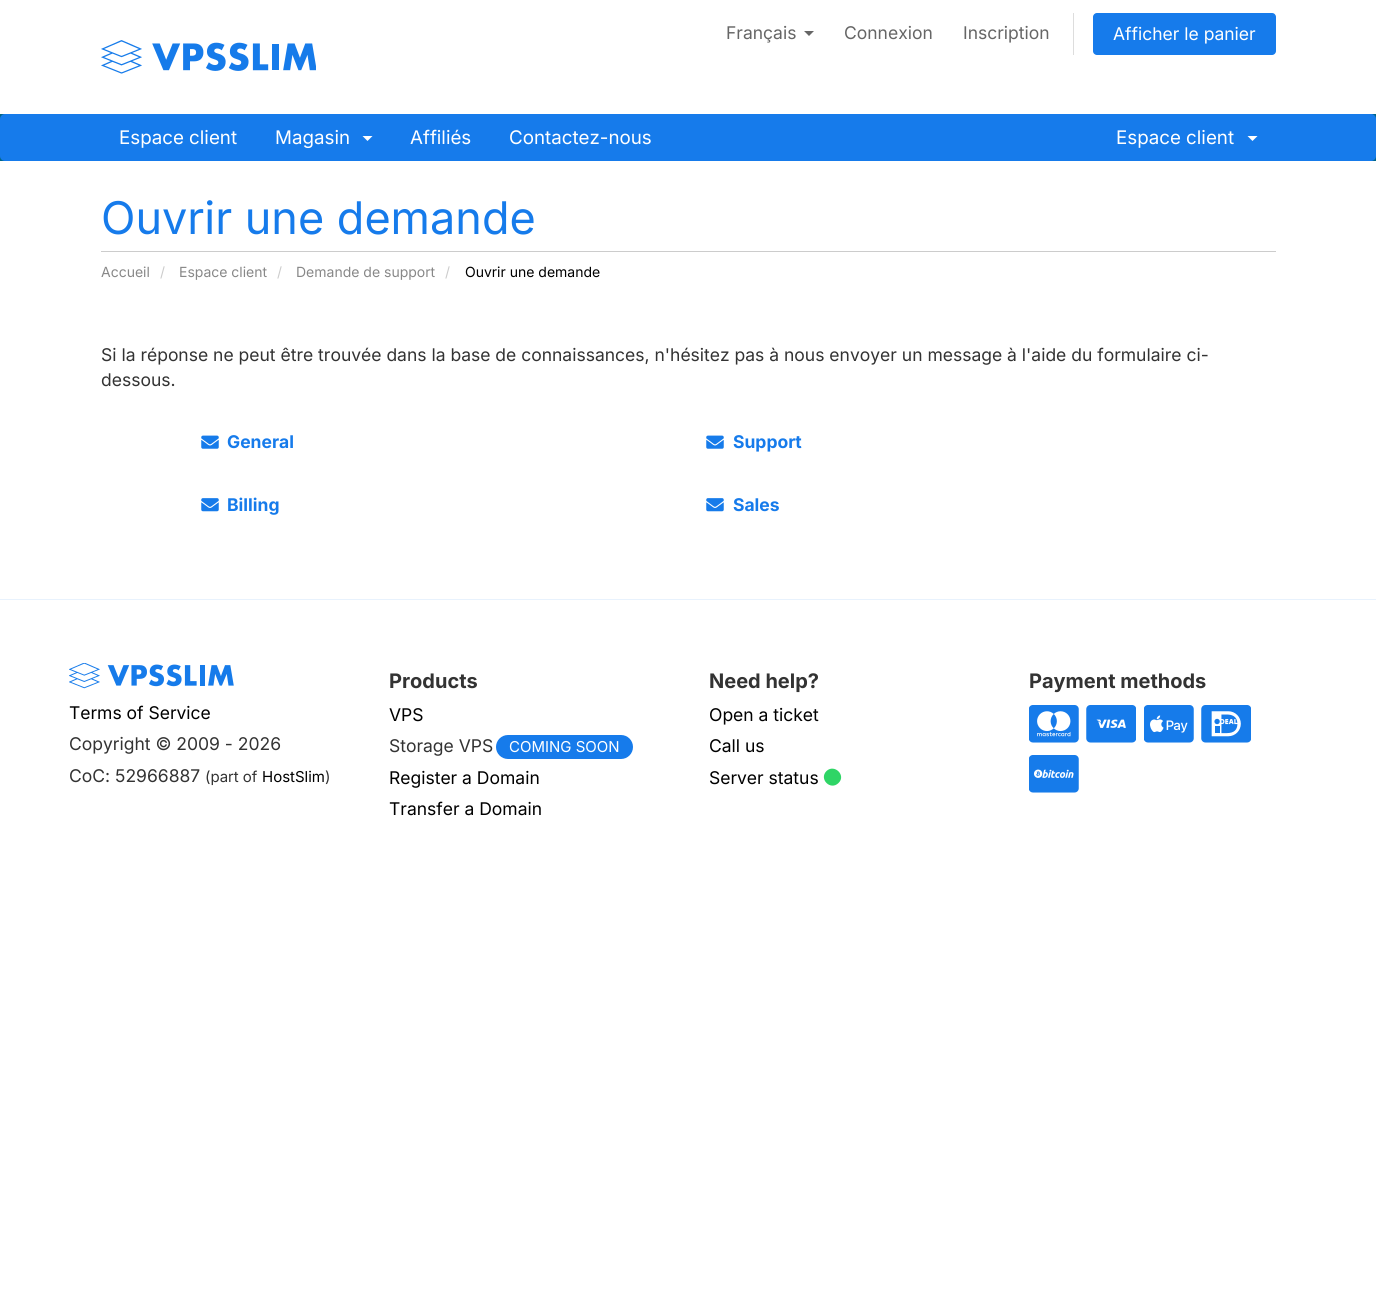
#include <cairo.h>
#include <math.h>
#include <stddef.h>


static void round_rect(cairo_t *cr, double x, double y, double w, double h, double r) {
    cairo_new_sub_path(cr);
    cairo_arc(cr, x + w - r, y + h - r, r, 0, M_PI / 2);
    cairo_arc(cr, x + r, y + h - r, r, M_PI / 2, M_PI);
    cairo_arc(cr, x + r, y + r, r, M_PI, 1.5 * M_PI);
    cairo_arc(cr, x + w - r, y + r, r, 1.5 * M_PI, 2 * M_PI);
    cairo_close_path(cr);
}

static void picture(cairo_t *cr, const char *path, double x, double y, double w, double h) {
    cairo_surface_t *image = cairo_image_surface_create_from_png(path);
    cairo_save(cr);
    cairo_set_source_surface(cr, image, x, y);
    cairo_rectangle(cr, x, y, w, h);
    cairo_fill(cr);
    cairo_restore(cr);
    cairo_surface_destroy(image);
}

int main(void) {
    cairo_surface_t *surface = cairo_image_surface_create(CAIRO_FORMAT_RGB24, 1376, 1309);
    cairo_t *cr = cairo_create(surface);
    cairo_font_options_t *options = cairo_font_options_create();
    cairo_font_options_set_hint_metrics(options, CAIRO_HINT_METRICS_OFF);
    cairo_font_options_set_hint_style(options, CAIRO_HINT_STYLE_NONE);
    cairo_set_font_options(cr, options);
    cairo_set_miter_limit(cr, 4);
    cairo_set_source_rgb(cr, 1, 1, 1);
    cairo_paint(cr);
    cairo_select_font_face(cr, "Inter", CAIRO_FONT_SLANT_NORMAL, CAIRO_FONT_WEIGHT_NORMAL);
    cairo_set_font_size(cr, 17.5);
    cairo_set_source_rgb(cr, 0.4, 0.4, 0.4);
    cairo_move_to(cr, 726, 39);
    cairo_show_text(cr, "Français");
    cairo_new_path(cr);
    cairo_move_to(cr, 804, 31);
    cairo_line_to(cr, 814, 31);
    cairo_line_to(cr, 809, 36);
    cairo_close_path(cr);
    cairo_fill(cr);
    cairo_move_to(cr, 844, 39);
    cairo_show_text(cr, "Connexion");
    cairo_move_to(cr, 963, 39);
    cairo_show_text(cr, "Inscription");
    cairo_set_source_rgb(cr, 0.867, 0.867, 0.867);
    cairo_rectangle(cr, 1073, 13, 1, 42);
    cairo_fill(cr);
    cairo_set_source_rgb(cr, 0.086, 0.482, 0.918);
    round_rect(cr, 1093, 13, 183, 42, 4);
    cairo_fill(cr);
    cairo_set_source_rgb(cr, 1, 1, 1);
    cairo_move_to(cr, 1113, 40);
    cairo_show_text(cr, "Afficher le panier");
    picture(cr, "img1.png", 101, 40, 215, 34);
    cairo_set_source_rgb(cr, 0, 0.4, 0.529);
    cairo_rectangle(cr, 0, 114, 1376, 47);
    cairo_fill(cr);
    cairo_set_source_rgb(cr, 0.086, 0.482, 0.918);
    round_rect(cr, 0, 114, 1376, 47, 5);
    cairo_fill(cr);
    cairo_set_font_size(cr, 18.75);
    cairo_set_source_rgb(cr, 1, 1, 1);
    cairo_move_to(cr, 119, 144);
    cairo_show_text(cr, "Espace client");
    cairo_move_to(cr, 275, 144);
    cairo_show_text(cr, "Magasin");
    cairo_new_path(cr);
    cairo_move_to(cr, 362.5, 136);
    cairo_line_to(cr, 372.5, 136);
    cairo_line_to(cr, 367.5, 141);
    cairo_close_path(cr);
    cairo_fill(cr);
    cairo_move_to(cr, 410, 144);
    cairo_show_text(cr, "Affiliés");
    cairo_move_to(cr, 509, 144);
    cairo_show_text(cr, "Contactez-nous");
    cairo_move_to(cr, 1116, 144);
    cairo_show_text(cr, "Espace client");
    cairo_new_path(cr);
    cairo_move_to(cr, 1247.5, 136);
    cairo_line_to(cr, 1257.5, 136);
    cairo_line_to(cr, 1252.5, 141);
    cairo_close_path(cr);
    cairo_fill(cr);
    cairo_set_source_rgb(cr, 0.8, 0.8, 0.8);
    cairo_rectangle(cr, 101, 251, 1175, 1);
    cairo_fill(cr);
    cairo_set_font_size(cr, 45);
    cairo_set_source_rgb(cr, 0.086, 0.482, 0.918);
    cairo_move_to(cr, 101, 234);
    cairo_show_text(cr, "Ouvrir une demande");
    cairo_set_font_size(cr, 14);
    cairo_set_source_rgb(cr, 0.533, 0.533, 0.533);
    cairo_move_to(cr, 101, 277);
    cairo_show_text(cr, "Accueil");
    cairo_set_source_rgb(cr, 0.8, 0.8, 0.8);
    cairo_move_to(cr, 160, 277);
    cairo_show_text(cr, "/");
    cairo_set_source_rgb(cr, 0.533, 0.533, 0.533);
    cairo_move_to(cr, 179, 277);
    cairo_show_text(cr, "Espace client");
    cairo_set_source_rgb(cr, 0.8, 0.8, 0.8);
    cairo_move_to(cr, 277, 277);
    cairo_show_text(cr, "/");
    cairo_set_source_rgb(cr, 0.533, 0.533, 0.533);
    cairo_move_to(cr, 296, 277);
    cairo_show_text(cr, "Demande de support");
    cairo_set_source_rgb(cr, 0.8, 0.8, 0.8);
    cairo_move_to(cr, 445, 277);
    cairo_show_text(cr, "/");
    cairo_set_source_rgb(cr, 0, 0, 0);
    cairo_move_to(cr, 465, 277);
    cairo_show_text(cr, "Ouvrir une demande");
    cairo_set_font_size(cr, 17.5);
    cairo_set_source_rgb(cr, 0.2, 0.2, 0.2);
    cairo_move_to(cr, 101, 361);
    cairo_show_text(cr, "Si la réponse ne peut être trouvée dans la base de connaissances, n'hésitez pas à nous envoyer un message à l'aide du formulaire ci-");
    cairo_move_to(cr, 101, 386);
    cairo_show_text(cr, "dessous.");
    picture(cr, "img2.png", 201, 435, 18, 14);
    cairo_select_font_face(cr, "Inter", CAIRO_FONT_SLANT_NORMAL, CAIRO_FONT_WEIGHT_BOLD);
    cairo_set_source_rgb(cr, 0.086, 0.482, 0.918);
    cairo_move_to(cr, 227, 448);
    cairo_show_text(cr, "General");
    picture(cr, "img2.png", 706, 435, 18, 14);
    cairo_move_to(cr, 733, 448);
    cairo_show_text(cr, "Support");
    picture(cr, "img3.png", 201, 498, 18, 14);
    cairo_move_to(cr, 227, 511);
    cairo_show_text(cr, "Billing");
    picture(cr, "img3.png", 706, 498, 18, 14);
    cairo_move_to(cr, 733, 511);
    cairo_show_text(cr, "Sales");
    cairo_set_source_rgb(cr, 0.91, 0.949, 0.992);
    cairo_rectangle(cr, 0, 599, 1376, 1);
    cairo_fill(cr);
    cairo_set_font_size(cr, 20);
    cairo_set_source_rgb(cr, 0.2, 0.2, 0.2);
    cairo_move_to(cr, 389, 688);
    cairo_show_text(cr, "Products");
    cairo_select_font_face(cr, "Inter", CAIRO_FONT_SLANT_NORMAL, CAIRO_FONT_WEIGHT_NORMAL);
    cairo_set_font_size(cr, 17.5);
    cairo_set_source_rgb(cr, 0, 0, 0);
    cairo_move_to(cr, 389, 721);
    cairo_show_text(cr, "VPS");
    cairo_set_source_rgb(cr, 0.2, 0.2, 0.2);
    cairo_move_to(cr, 389, 752);
    cairo_show_text(cr, "Storage VPS");
    cairo_set_source_rgb(cr, 0.086, 0.482, 0.918);
    round_rect(cr, 496, 735, 137, 24, 12);
    cairo_fill(cr);
    cairo_set_font_size(cr, 15);
    cairo_set_source_rgb(cr, 1, 1, 1);
    cairo_move_to(cr, 509, 752);
    cairo_show_text(cr, "COMING SOON");
    cairo_set_font_size(cr, 17.5);
    cairo_set_source_rgb(cr, 0, 0, 0);
    cairo_move_to(cr, 389, 784);
    cairo_show_text(cr, "Register a Domain");
    cairo_move_to(cr, 389, 815);
    cairo_show_text(cr, "Transfer a Domain");
    cairo_select_font_face(cr, "Inter", CAIRO_FONT_SLANT_NORMAL, CAIRO_FONT_WEIGHT_BOLD);
    cairo_set_font_size(cr, 20);
    cairo_set_source_rgb(cr, 0.2, 0.2, 0.2);
    cairo_move_to(cr, 709, 688);
    cairo_show_text(cr, "Need help?");
    cairo_select_font_face(cr, "Inter", CAIRO_FONT_SLANT_NORMAL, CAIRO_FONT_WEIGHT_NORMAL);
    cairo_set_font_size(cr, 17.5);
    cairo_set_source_rgb(cr, 0, 0, 0);
    cairo_move_to(cr, 709, 721);
    cairo_show_text(cr, "Open a ticket");
    cairo_move_to(cr, 709, 752);
    cairo_show_text(cr, "Call us");
    cairo_move_to(cr, 709, 784);
    cairo_show_text(cr, "Server status");
    cairo_set_source_rgb(cr, 0.184, 0.835, 0.4);
    cairo_new_path(cr);
    cairo_move_to(cr, 826.5, 771);
    cairo_curve_to(cr, 834.5, 763.5, 846.5, 775.5, 838.5, 783);
    cairo_curve_to(cr, 830.5, 791, 818.5, 779, 826.5, 771);
    cairo_close_path(cr);
    cairo_fill(cr);
    cairo_select_font_face(cr, "Inter", CAIRO_FONT_SLANT_NORMAL, CAIRO_FONT_WEIGHT_BOLD);
    cairo_set_font_size(cr, 20);
    cairo_set_source_rgb(cr, 0.2, 0.2, 0.2);
    cairo_move_to(cr, 1029, 688);
    cairo_show_text(cr, "Payment methods");
    picture(cr, "img4.png", 1029, 705, 50, 38);
    picture(cr, "img5.png", 1086, 705, 50, 38);
    picture(cr, "img6.png", 1144, 705, 50, 38);
    picture(cr, "img7.png", 1201, 705, 50, 38);
    picture(cr, "img8.png", 1029, 755, 50, 38);
    picture(cr, "img9.png", 69, 663, 165, 26);
    cairo_select_font_face(cr, "Inter", CAIRO_FONT_SLANT_NORMAL, CAIRO_FONT_WEIGHT_NORMAL);
    cairo_set_font_size(cr, 17.5);
    cairo_set_source_rgb(cr, 0, 0, 0);
    cairo_move_to(cr, 69, 719);
    cairo_show_text(cr, "Terms of Service");
    cairo_set_source_rgb(cr, 0.2, 0.2, 0.2);
    cairo_move_to(cr, 69, 750);
    cairo_show_text(cr, "Copyright © 2009 - 2026");
    cairo_move_to(cr, 69, 782);
    cairo_show_text(cr, "CoC: 52966887");
    cairo_set_font_size(cr, 15);
    cairo_move_to(cr, 205, 782);
    cairo_show_text(cr, "(part of");
    cairo_set_source_rgb(cr, 0, 0, 0);
    cairo_move_to(cr, 262, 782);
    cairo_show_text(cr, "HostSlim");
    cairo_set_source_rgb(cr, 0.2, 0.2, 0.2);
    cairo_move_to(cr, 325, 782);
    cairo_show_text(cr, ")");
    cairo_surface_write_to_png(surface, "page.png");
    cairo_font_options_destroy(options);
    cairo_destroy(cr);
    cairo_surface_destroy(surface);
    return 0;
}
